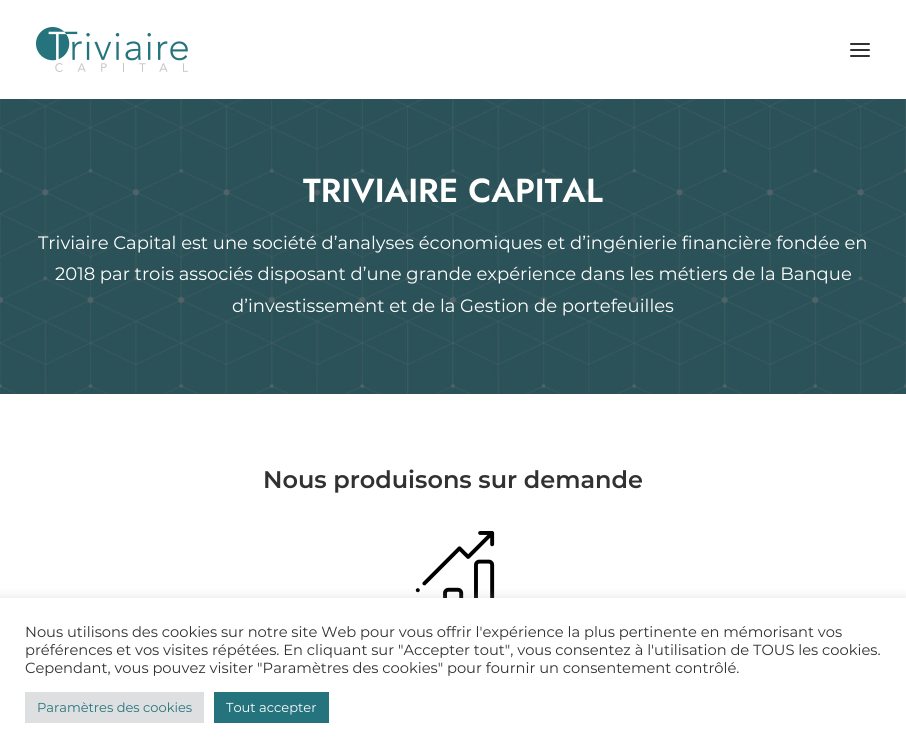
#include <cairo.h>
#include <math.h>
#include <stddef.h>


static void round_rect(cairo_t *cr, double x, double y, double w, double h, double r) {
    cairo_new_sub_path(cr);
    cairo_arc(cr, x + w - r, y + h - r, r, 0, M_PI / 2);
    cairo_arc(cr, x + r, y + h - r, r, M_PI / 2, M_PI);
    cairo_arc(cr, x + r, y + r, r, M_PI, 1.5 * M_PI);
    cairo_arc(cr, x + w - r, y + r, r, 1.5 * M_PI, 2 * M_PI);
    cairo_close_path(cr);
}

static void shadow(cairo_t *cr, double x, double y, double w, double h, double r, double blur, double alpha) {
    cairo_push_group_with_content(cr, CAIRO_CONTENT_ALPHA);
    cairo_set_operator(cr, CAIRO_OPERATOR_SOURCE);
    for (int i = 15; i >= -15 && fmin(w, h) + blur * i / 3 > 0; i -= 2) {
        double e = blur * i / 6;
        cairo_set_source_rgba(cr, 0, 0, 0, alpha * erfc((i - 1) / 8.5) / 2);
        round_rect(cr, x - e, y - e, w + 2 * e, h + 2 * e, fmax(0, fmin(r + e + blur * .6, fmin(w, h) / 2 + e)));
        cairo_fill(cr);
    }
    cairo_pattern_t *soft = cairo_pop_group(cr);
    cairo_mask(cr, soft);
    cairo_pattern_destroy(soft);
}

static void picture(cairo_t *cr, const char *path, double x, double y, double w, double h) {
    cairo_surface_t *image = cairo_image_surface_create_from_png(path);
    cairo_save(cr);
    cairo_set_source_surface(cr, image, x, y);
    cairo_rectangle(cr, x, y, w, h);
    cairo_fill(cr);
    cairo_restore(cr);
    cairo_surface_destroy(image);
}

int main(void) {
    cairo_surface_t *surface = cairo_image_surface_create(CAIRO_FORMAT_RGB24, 906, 753);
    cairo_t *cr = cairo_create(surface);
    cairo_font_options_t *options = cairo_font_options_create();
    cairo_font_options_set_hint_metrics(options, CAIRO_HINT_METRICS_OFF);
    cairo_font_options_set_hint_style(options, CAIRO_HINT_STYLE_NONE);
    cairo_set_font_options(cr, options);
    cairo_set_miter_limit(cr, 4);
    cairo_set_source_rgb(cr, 1, 1, 1);
    cairo_paint(cr);
    picture(cr, "img1.png", 36, 27, 152, 45);
    cairo_set_source_rgb(cr, 0.188, 0.192, 0.2);
    round_rect(cr, 850, 49, 20, 2, 1);
    cairo_fill(cr);
    round_rect(cr, 850, 43, 20, 2, 1);
    cairo_fill(cr);
    round_rect(cr, 850, 55, 20, 2, 1);
    cairo_fill(cr);
    picture(cr, "img2.png", 0, 99, 906, 295);
    cairo_select_font_face(cr, "Jost SemiBold", CAIRO_FONT_SLANT_NORMAL, CAIRO_FONT_WEIGHT_NORMAL);
    cairo_set_font_size(cr, 33.25);
    cairo_set_source_rgb(cr, 1, 1, 1);
    cairo_move_to(cr, 303, 202);
    cairo_show_text(cr, "TRIVIAIRE CAPITAL");
    cairo_select_font_face(cr, "Montserrat", CAIRO_FONT_SLANT_NORMAL, CAIRO_FONT_WEIGHT_NORMAL);
    cairo_set_font_size(cr, 18);
    cairo_move_to(cr, 38, 249);
    cairo_show_text(cr, "Triviaire Capital est une société d’analyses économiques et d’ingénierie financière fondée en");
    cairo_move_to(cr, 55, 280);
    cairo_show_text(cr, "2018 par trois associés disposant d’une grande expérience dans les métiers de la Banque");
    cairo_move_to(cr, 232, 312);
    cairo_show_text(cr, "d’investissement et de la Gestion de portefeuilles");
    cairo_select_font_face(cr, "Montserrat SemiBold", CAIRO_FONT_SLANT_NORMAL, CAIRO_FONT_WEIGHT_NORMAL);
    cairo_set_font_size(cr, 24);
    cairo_set_source_rgb(cr, 0.188, 0.192, 0.2);
    cairo_move_to(cr, 263, 488);
    cairo_show_text(cr, "Nous produisons sur demande");
    picture(cr, "img3.png", 415, 531, 80, 67);
    cairo_set_source_rgb(cr, 0.675, 0.671, 0.671);
    shadow(cr, 0, 597, 906, 155, 0, 5, 0.3);
    cairo_set_source_rgb(cr, 1, 1, 1);
    cairo_rectangle(cr, 0, 598, 906, 155);
    cairo_fill(cr);
    cairo_select_font_face(cr, "Montserrat", CAIRO_FONT_SLANT_NORMAL, CAIRO_FONT_WEIGHT_NORMAL);
    cairo_set_font_size(cr, 14.67);
    cairo_set_source_rgb(cr, 0.188, 0.192, 0.2);
    cairo_move_to(cr, 25, 637);
    cairo_show_text(cr, "Nous utilisons des cookies sur notre site Web pour vous offrir l'expérience la plus pertinente en mémorisant vos");
    cairo_move_to(cr, 25, 655);
    cairo_show_text(cr, "préférences et vos visites répétées. En cliquant sur \"Accepter tout\", vous consentez à l'utilisation de TOUS les cookies.");
    cairo_move_to(cr, 25, 673);
    cairo_show_text(cr, "Cependant, vous pouvez visiter \"Paramètres des cookies\" pour fournir un consentement contrôlé.");
    cairo_set_source_rgb(cr, 0.871, 0.875, 0.878);
    cairo_rectangle(cr, 25, 692, 179, 31);
    cairo_fill(cr);
    cairo_set_font_size(cr, 13);
    cairo_set_source_rgb(cr, 0.141, 0.451, 0.49);
    cairo_move_to(cr, 37, 712);
    cairo_show_text(cr, "Paramètres des cookies");
    cairo_rectangle(cr, 214, 692, 115, 31);
    cairo_fill(cr);
    cairo_set_source_rgb(cr, 1, 1, 1);
    cairo_move_to(cr, 226, 712);
    cairo_show_text(cr, "Tout accepter");
    cairo_surface_write_to_png(surface, "page.png");
    cairo_font_options_destroy(options);
    cairo_destroy(cr);
    cairo_surface_destroy(surface);
    return 0;
}
